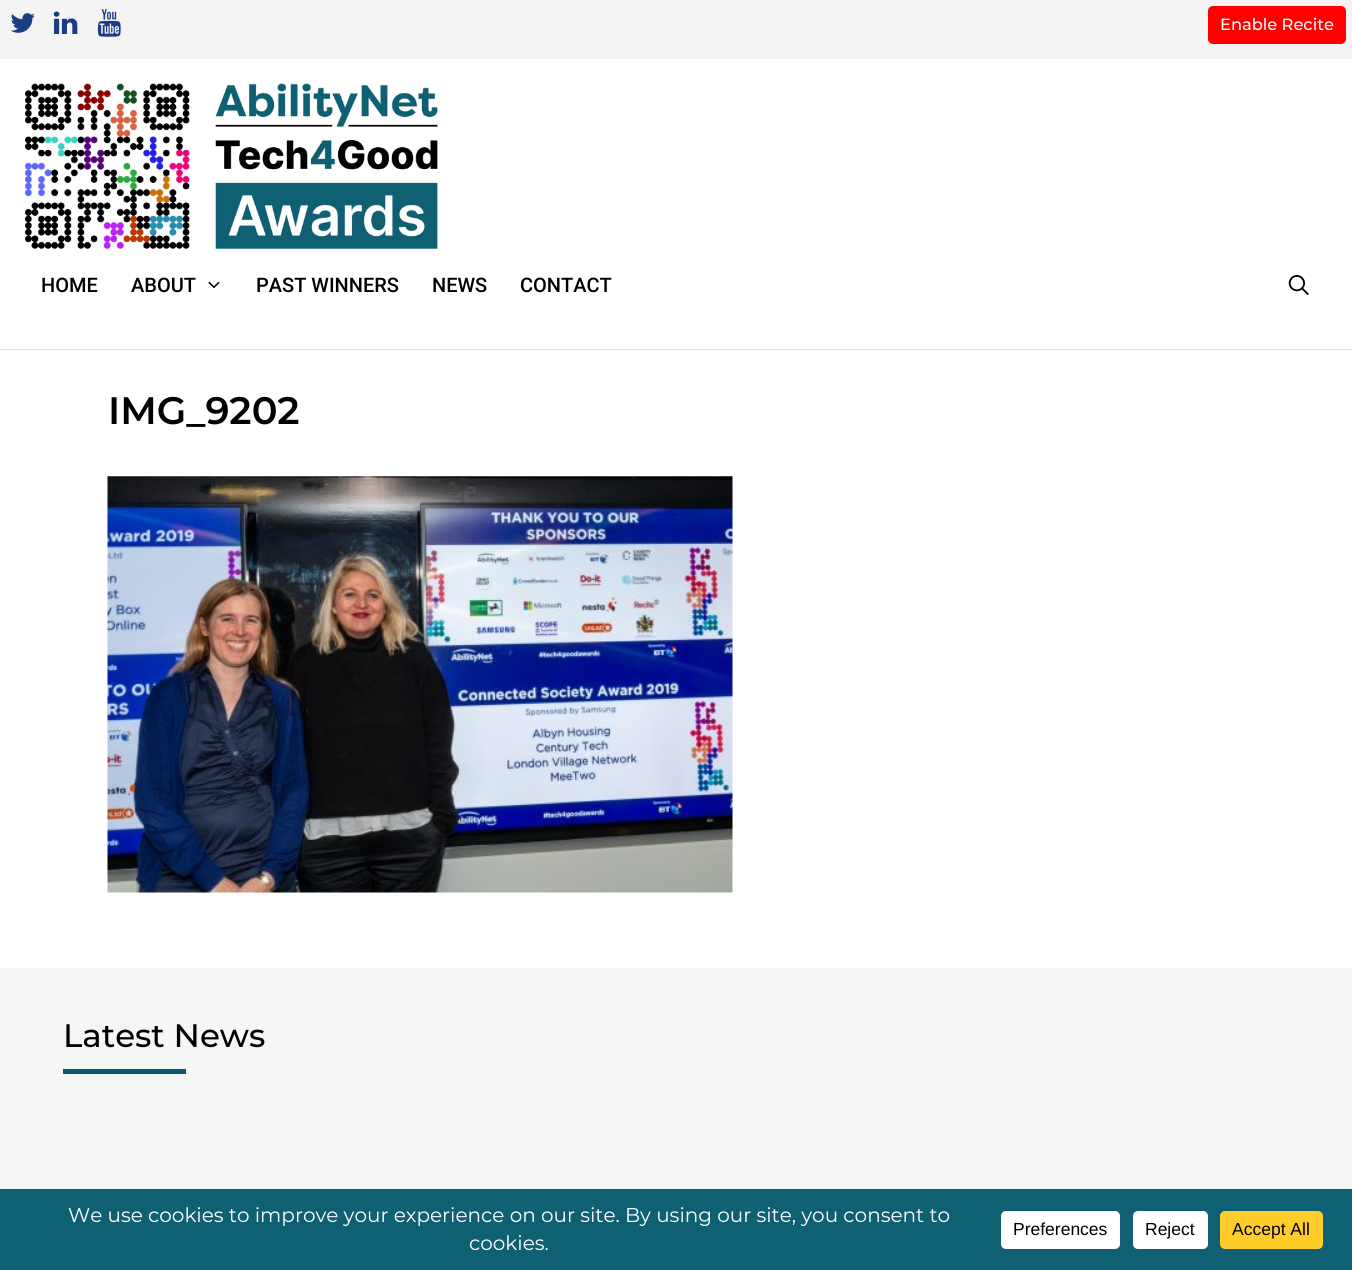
#include <cairo.h>
#include <math.h>
#include <stddef.h>


static void round_rect(cairo_t *cr, double x, double y, double w, double h, double r) {
    cairo_new_sub_path(cr);
    cairo_arc(cr, x + w - r, y + h - r, r, 0, M_PI / 2);
    cairo_arc(cr, x + r, y + h - r, r, M_PI / 2, M_PI);
    cairo_arc(cr, x + r, y + r, r, M_PI, 1.5 * M_PI);
    cairo_arc(cr, x + w - r, y + r, r, 1.5 * M_PI, 2 * M_PI);
    cairo_close_path(cr);
}

static void picture(cairo_t *cr, const char *path, double x, double y, double w, double h) {
    cairo_surface_t *image = cairo_image_surface_create_from_png(path);
    cairo_save(cr);
    cairo_set_source_surface(cr, image, x, y);
    cairo_rectangle(cr, x, y, w, h);
    cairo_fill(cr);
    cairo_restore(cr);
    cairo_surface_destroy(image);
}

int main(void) {
    cairo_surface_t *surface = cairo_image_surface_create(CAIRO_FORMAT_RGB24, 1352, 1270);
    cairo_t *cr = cairo_create(surface);
    cairo_font_options_t *options = cairo_font_options_create();
    cairo_font_options_set_hint_metrics(options, CAIRO_HINT_METRICS_OFF);
    cairo_font_options_set_hint_style(options, CAIRO_HINT_STYLE_NONE);
    cairo_set_font_options(cr, options);
    cairo_set_miter_limit(cr, 4);
    cairo_set_source_rgb(cr, 1, 1, 1);
    cairo_paint(cr);
    cairo_set_source_rgb(cr, 0.957, 0.957, 0.957);
    cairo_rectangle(cr, 0, 0, 1352, 59);
    cairo_fill(cr);
    picture(cr, "img1.png", 11, 13, 24, 20);
    picture(cr, "img2.png", 53, 11, 25, 23);
    picture(cr, "img3.png", 97, 9, 24, 28);
    cairo_set_source_rgb(cr, 1, 0, 0);
    round_rect(cr, 1208, 6, 138, 38, 5);
    cairo_fill(cr);
    cairo_select_font_face(cr, "Montserrat Medium", CAIRO_FONT_SLANT_NORMAL, CAIRO_FONT_WEIGHT_NORMAL);
    cairo_set_font_size(cr, 16.25);
    cairo_set_source_rgb(cr, 1, 1, 1);
    cairo_move_to(cr, 1220, 30);
    cairo_show_text(cr, "Enable Recite");
    cairo_set_source_rgb(cr, 0.882, 0.882, 0.882);
    cairo_rectangle(cr, 0, 349, 1352, 1);
    cairo_fill(cr);
    picture(cr, "img4.png", 25, 83, 413, 166);
    cairo_select_font_face(cr, "Roboto Medium", CAIRO_FONT_SLANT_NORMAL, CAIRO_FONT_WEIGHT_NORMAL);
    cairo_set_font_size(cr, 20);
    cairo_set_source_rgb(cr, 0, 0, 0);
    cairo_move_to(cr, 41, 292);
    cairo_show_text(cr, "HOME");
    cairo_move_to(cr, 131, 292);
    cairo_show_text(cr, "ABOUT");
    picture(cr, "img5.png", 208, 281, 12, 8);
    cairo_move_to(cr, 256, 292);
    cairo_show_text(cr, "PAST WINNERS");
    cairo_move_to(cr, 432, 292);
    cairo_show_text(cr, "NEWS");
    cairo_move_to(cr, 520, 292);
    cairo_show_text(cr, "CONTACT");
    picture(cr, "img6.png", 1288, 275, 21, 20);
    cairo_select_font_face(cr, "Montserrat SemiBold", CAIRO_FONT_SLANT_NORMAL, CAIRO_FONT_WEIGHT_NORMAL);
    cairo_set_font_size(cr, 38.25);
    cairo_move_to(cr, 108, 424);
    cairo_show_text(cr, "IMG_9202");
    picture(cr, "img7.png", 107, 476, 626, 417);
    cairo_set_source_rgb(cr, 0.961, 0.961, 0.961);
    cairo_rectangle(cr, 0, 968, 1352, 221);
    cairo_fill(cr);
    cairo_select_font_face(cr, "Montserrat Medium", CAIRO_FONT_SLANT_NORMAL, CAIRO_FONT_WEIGHT_NORMAL);
    cairo_set_font_size(cr, 32.5);
    cairo_set_source_rgb(cr, 0, 0, 0);
    cairo_move_to(cr, 63, 1047);
    cairo_show_text(cr, "Latest News");
    cairo_set_source_rgb(cr, 0, 0.361, 0.431);
    cairo_rectangle(cr, 63, 1069, 123, 5);
    cairo_fill(cr);
    cairo_set_source_rgb(cr, 0.059, 0.376, 0.451);
    cairo_rectangle(cr, 0, 1189, 1352, 81);
    cairo_fill(cr);
    cairo_select_font_face(cr, "Montserrat", CAIRO_FONT_SLANT_NORMAL, CAIRO_FONT_WEIGHT_NORMAL);
    cairo_set_font_size(cr, 20);
    cairo_set_source_rgb(cr, 1, 1, 1);
    cairo_move_to(cr, 68, 1222);
    cairo_show_text(cr, "We use cookies to improve your experience on our site. By using our site, you consent to");
    cairo_move_to(cr, 469, 1250);
    cairo_show_text(cr, "cookies.");
    round_rect(cr, 1001, 1211, 119, 38, 5);
    cairo_fill(cr);
    cairo_select_font_face(cr, "Liberation Sans", CAIRO_FONT_SLANT_NORMAL, CAIRO_FONT_WEIGHT_NORMAL);
    cairo_set_font_size(cr, 17.5);
    cairo_set_source_rgb(cr, 0, 0, 0);
    cairo_move_to(cr, 1013, 1235);
    cairo_show_text(cr, "Preferences");
    cairo_set_source_rgb(cr, 1, 1, 1);
    round_rect(cr, 1133, 1211, 75, 38, 5);
    cairo_fill(cr);
    cairo_set_source_rgb(cr, 0, 0, 0);
    cairo_move_to(cr, 1145, 1235);
    cairo_show_text(cr, "Reject");
    cairo_set_source_rgb(cr, 1, 0.804, 0.165);
    round_rect(cr, 1220, 1211, 103, 38, 5);
    cairo_fill(cr);
    cairo_set_source_rgb(cr, 0, 0, 0);
    cairo_move_to(cr, 1232, 1235);
    cairo_show_text(cr, "Accept All");
    cairo_surface_write_to_png(surface, "page.png");
    cairo_font_options_destroy(options);
    cairo_destroy(cr);
    cairo_surface_destroy(surface);
    return 0;
}
